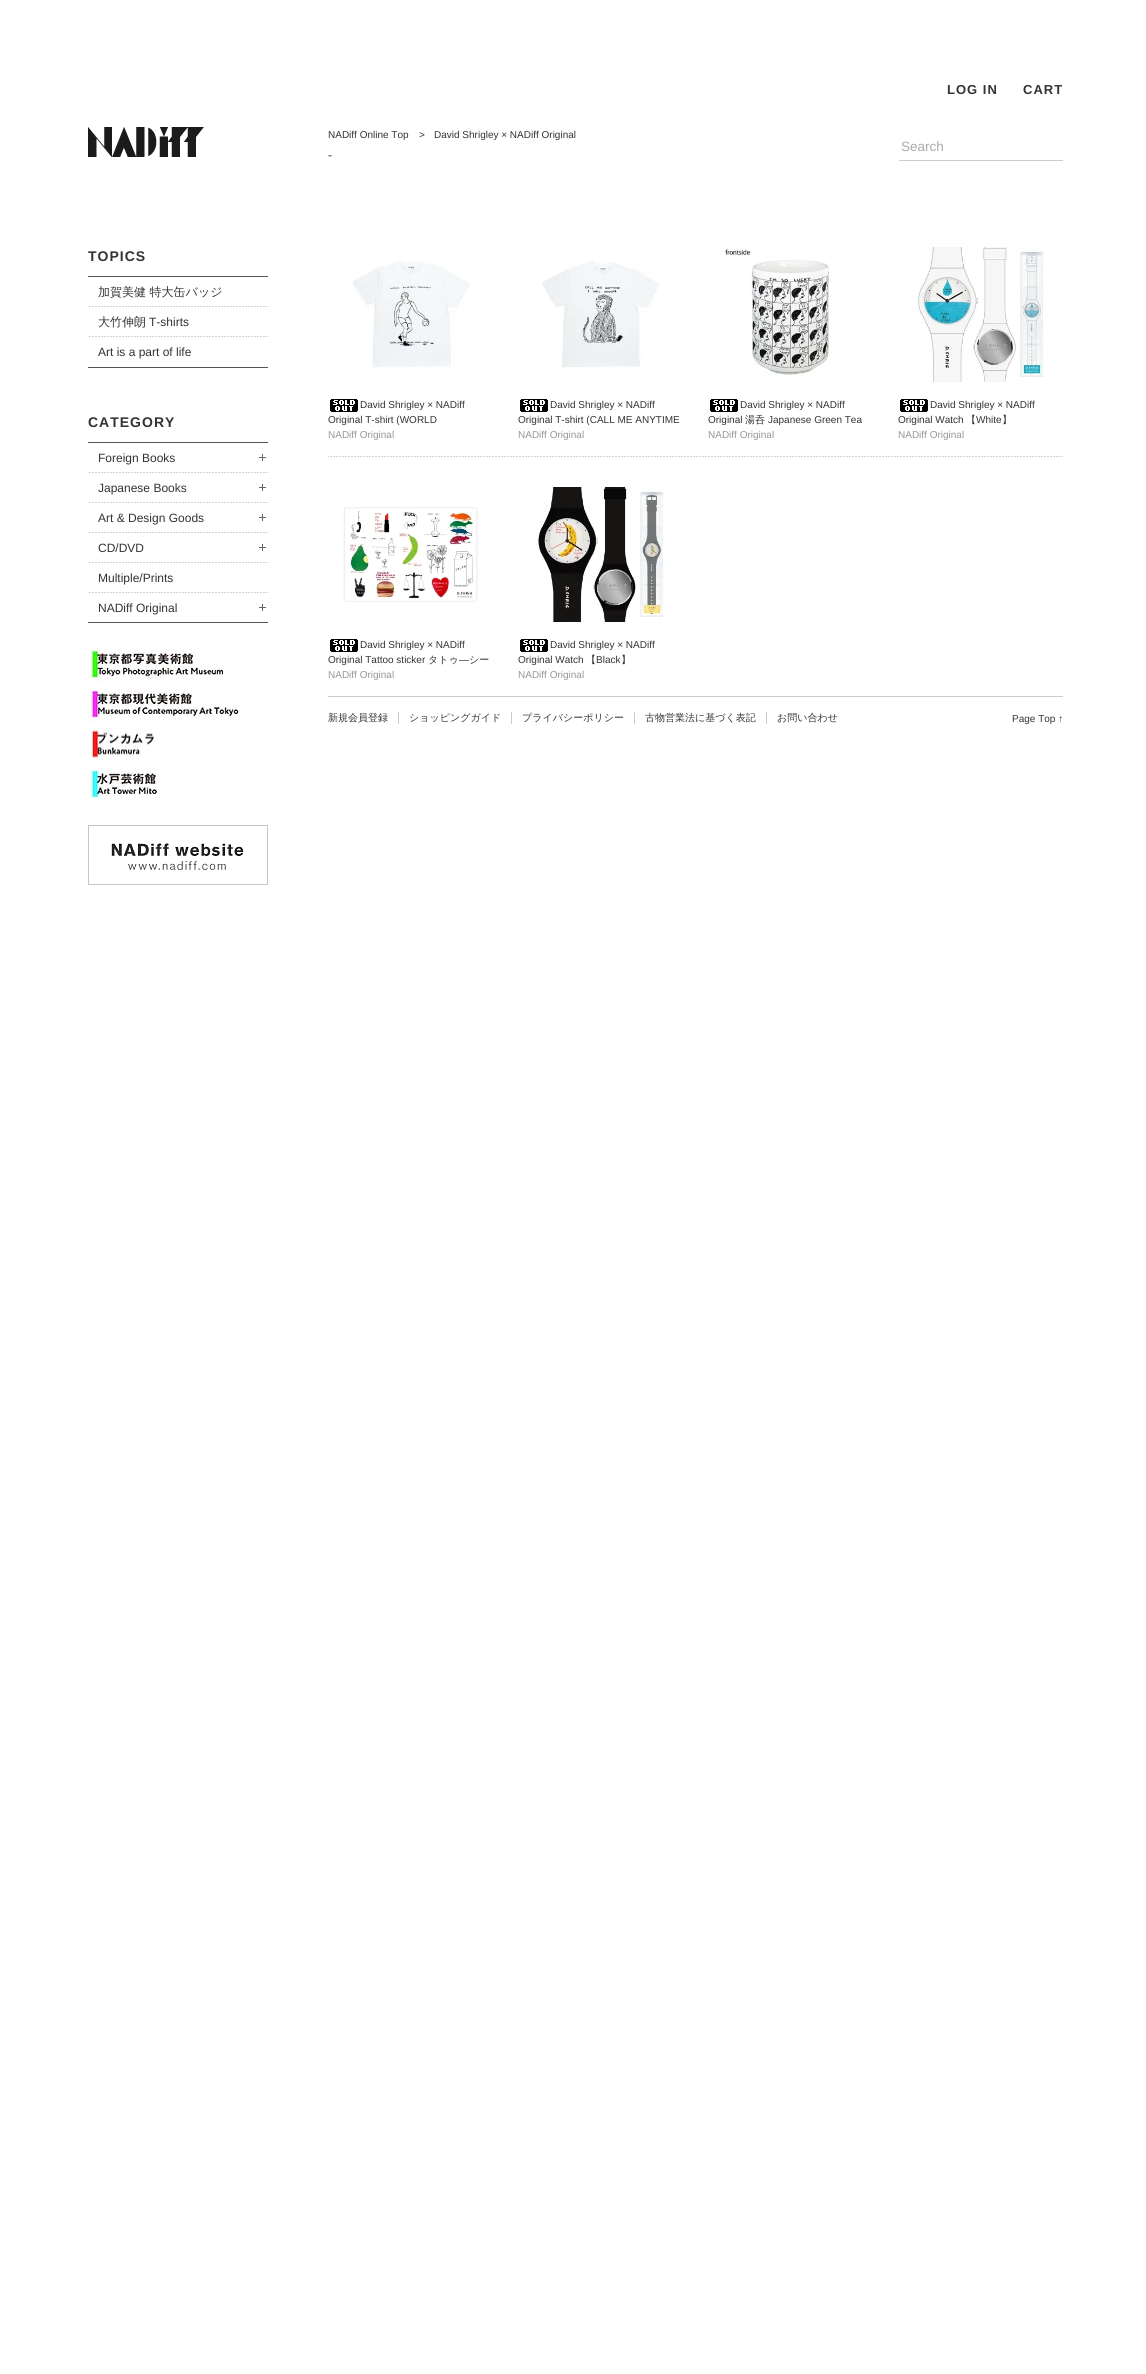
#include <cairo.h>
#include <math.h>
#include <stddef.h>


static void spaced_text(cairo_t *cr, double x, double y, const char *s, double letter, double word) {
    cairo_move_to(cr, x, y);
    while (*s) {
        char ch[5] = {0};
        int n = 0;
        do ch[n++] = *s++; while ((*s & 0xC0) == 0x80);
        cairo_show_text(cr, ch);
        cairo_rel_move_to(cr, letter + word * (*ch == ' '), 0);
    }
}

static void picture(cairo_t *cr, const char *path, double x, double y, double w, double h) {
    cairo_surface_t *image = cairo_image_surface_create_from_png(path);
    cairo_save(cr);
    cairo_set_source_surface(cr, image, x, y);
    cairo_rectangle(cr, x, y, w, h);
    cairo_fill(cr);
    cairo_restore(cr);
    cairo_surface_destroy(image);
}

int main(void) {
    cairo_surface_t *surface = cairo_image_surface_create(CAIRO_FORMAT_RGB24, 1146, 2374);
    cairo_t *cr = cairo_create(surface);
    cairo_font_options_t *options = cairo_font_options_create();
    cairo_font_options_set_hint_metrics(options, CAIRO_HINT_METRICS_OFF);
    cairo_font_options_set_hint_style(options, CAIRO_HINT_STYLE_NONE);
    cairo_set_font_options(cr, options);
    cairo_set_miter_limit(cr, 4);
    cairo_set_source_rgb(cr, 1, 1, 1);
    cairo_paint(cr);
    picture(cr, "img1.png", 88, 127, 116, 30);
    cairo_select_font_face(cr, "Liberation Sans", CAIRO_FONT_SLANT_NORMAL, CAIRO_FONT_WEIGHT_BOLD);
    cairo_set_font_size(cr, 14);
    cairo_set_source_rgb(cr, 0.2, 0.2, 0.2);
    spaced_text(cr, 88, 261, "TOPICS", 1, 0);
    cairo_set_source_rgb(cr, 0.333, 0.333, 0.333);
    cairo_rectangle(cr, 88, 276, 180, 1);
    cairo_fill(cr);
    cairo_rectangle(cr, 88, 367, 180, 1);
    cairo_fill(cr);
    picture(cr, "img2.png", 89, 306, 179, 1);
    cairo_select_font_face(cr, "WenQuanYi Zen Hei Medium", CAIRO_FONT_SLANT_NORMAL, CAIRO_FONT_WEIGHT_NORMAL);
    cairo_set_font_size(cr, 12);
    cairo_set_source_rgb(cr, 0.2, 0.2, 0.2);
    cairo_move_to(cr, 98, 296);
    cairo_show_text(cr, "加賀美健 特大缶バッジ");
    picture(cr, "img2.png", 89, 336, 179, 1);
    cairo_move_to(cr, 98, 326);
    cairo_show_text(cr, "大竹伸朗");
    cairo_select_font_face(cr, "Liberation Sans", CAIRO_FONT_SLANT_NORMAL, CAIRO_FONT_WEIGHT_NORMAL);
    cairo_move_to(cr, 149, 326);
    cairo_show_text(cr, "T-shirts");
    cairo_move_to(cr, 98, 356);
    cairo_show_text(cr, "Art is a part of life");
    cairo_select_font_face(cr, "Liberation Sans", CAIRO_FONT_SLANT_NORMAL, CAIRO_FONT_WEIGHT_BOLD);
    cairo_set_font_size(cr, 14);
    spaced_text(cr, 88, 427, "CATEGORY", 1, 0);
    cairo_set_source_rgb(cr, 0.333, 0.333, 0.333);
    cairo_rectangle(cr, 88, 442, 180, 1);
    cairo_fill(cr);
    cairo_rectangle(cr, 88, 622, 180, 1);
    cairo_fill(cr);
    picture(cr, "img2.png", 89, 472, 179, 1);
    picture(cr, "img3.png", 259, 454, 7, 7);
    cairo_select_font_face(cr, "Liberation Sans", CAIRO_FONT_SLANT_NORMAL, CAIRO_FONT_WEIGHT_NORMAL);
    cairo_set_font_size(cr, 12);
    cairo_set_source_rgb(cr, 0.2, 0.2, 0.2);
    cairo_move_to(cr, 98, 462);
    cairo_show_text(cr, "Foreign Books");
    picture(cr, "img2.png", 89, 502, 179, 1);
    picture(cr, "img3.png", 259, 484, 7, 7);
    cairo_move_to(cr, 98, 492);
    cairo_show_text(cr, "Japanese Books");
    picture(cr, "img2.png", 89, 532, 179, 1);
    picture(cr, "img3.png", 259, 514, 7, 7);
    cairo_move_to(cr, 98, 522);
    cairo_show_text(cr, "Art & Design Goods");
    picture(cr, "img2.png", 89, 562, 179, 1);
    picture(cr, "img3.png", 259, 544, 7, 7);
    cairo_move_to(cr, 98, 552);
    cairo_show_text(cr, "CD/DVD");
    picture(cr, "img2.png", 89, 592, 179, 1);
    cairo_move_to(cr, 98, 582);
    cairo_show_text(cr, "Multiple/Prints");
    picture(cr, "img3.png", 259, 604, 7, 7);
    cairo_move_to(cr, 98, 612);
    cairo_show_text(cr, "NADiff Original");
    picture(cr, "img4.png", 91, 650, 133, 33);
    picture(cr, "img5.png", 88, 690, 152, 33);
    picture(cr, "img6.png", 88, 730, 67, 32);
    picture(cr, "img7.png", 91, 770, 69, 33);
    picture(cr, "img8.png", 88, 825, 180, 60);
    cairo_select_font_face(cr, "Liberation Sans", CAIRO_FONT_SLANT_NORMAL, CAIRO_FONT_WEIGHT_BOLD);
    cairo_set_font_size(cr, 13);
    spaced_text(cr, 947, 94, "LOG IN", 1, 0);
    spaced_text(cr, 1023, 94, "CART", 1, 0);
    cairo_select_font_face(cr, "Liberation Sans", CAIRO_FONT_SLANT_NORMAL, CAIRO_FONT_WEIGHT_NORMAL);
    cairo_set_font_size(cr, 10);
    cairo_move_to(cr, 328, 138);
    cairo_show_text(cr, "NADiff Online Top");
    cairo_move_to(cr, 419, 138);
    cairo_show_text(cr, ">");
    cairo_move_to(cr, 434, 138);
    cairo_show_text(cr, "David Shrigley × NADiff Original");
    cairo_set_source_rgb(cr, 0.8, 0.8, 0.8);
    cairo_rectangle(cr, 899, 160, 164, 1);
    cairo_fill(cr);
    cairo_set_font_size(cr, 13.5);
    cairo_set_source_rgb(cr, 0.667, 0.667, 0.667);
    cairo_move_to(cr, 901, 151);
    cairo_show_text(cr, "Search");
    cairo_set_font_size(cr, 12);
    cairo_set_source_rgb(cr, 0.2, 0.2, 0.2);
    spaced_text(cr, 328, 159, "-", 2, 0);
    picture(cr, "img9.png", 352, 260, 118, 108);
    picture(cr, "img10.png", 330, 399, 28, 13);
    cairo_set_font_size(cr, 10);
    cairo_move_to(cr, 360, 408);
    cairo_show_text(cr, "David Shrigley × NADiff");
    cairo_move_to(cr, 328, 423);
    cairo_show_text(cr, "Original T-shirt (WORLD");
    cairo_set_source_rgb(cr, 0.588, 0.588, 0.588);
    cairo_move_to(cr, 328, 438);
    cairo_show_text(cr, "NADiff Original");
    picture(cr, "img11.png", 542, 260, 118, 108);
    picture(cr, "img10.png", 520, 399, 28, 13);
    cairo_set_source_rgb(cr, 0.2, 0.2, 0.2);
    cairo_move_to(cr, 550, 408);
    cairo_show_text(cr, "David Shrigley × NADiff");
    cairo_move_to(cr, 518, 423);
    cairo_show_text(cr, "Original T-shirt (CALL ME ANYTIME");
    cairo_set_source_rgb(cr, 0.588, 0.588, 0.588);
    cairo_move_to(cr, 518, 438);
    cairo_show_text(cr, "NADiff Original");
    picture(cr, "img12.png", 725, 249, 104, 126);
    picture(cr, "img10.png", 710, 399, 28, 13);
    cairo_set_source_rgb(cr, 0.2, 0.2, 0.2);
    cairo_move_to(cr, 740, 408);
    cairo_show_text(cr, "David Shrigley × NADiff");
    cairo_move_to(cr, 708, 423);
    cairo_show_text(cr, "Original");
    cairo_select_font_face(cr, "WenQuanYi Zen Hei Medium", CAIRO_FONT_SLANT_NORMAL, CAIRO_FONT_WEIGHT_NORMAL);
    cairo_move_to(cr, 745, 423);
    cairo_show_text(cr, "湯呑");
    cairo_select_font_face(cr, "Liberation Sans", CAIRO_FONT_SLANT_NORMAL, CAIRO_FONT_WEIGHT_NORMAL);
    cairo_move_to(cr, 768, 423);
    cairo_show_text(cr, "Japanese Green Tea");
    cairo_set_source_rgb(cr, 0.588, 0.588, 0.588);
    cairo_move_to(cr, 708, 438);
    cairo_show_text(cr, "NADiff Original");
    picture(cr, "img13.png", 917, 247, 128, 135);
    picture(cr, "img10.png", 900, 399, 28, 13);
    cairo_set_source_rgb(cr, 0.2, 0.2, 0.2);
    cairo_move_to(cr, 930, 408);
    cairo_show_text(cr, "David Shrigley × NADiff");
    cairo_move_to(cr, 898, 423);
    cairo_show_text(cr, "Original Watch");
    cairo_select_font_face(cr, "WenQuanYi Zen Hei Medium", CAIRO_FONT_SLANT_NORMAL, CAIRO_FONT_WEIGHT_NORMAL);
    cairo_move_to(cr, 966, 423);
    cairo_show_text(cr, "【");
    cairo_select_font_face(cr, "Liberation Sans", CAIRO_FONT_SLANT_NORMAL, CAIRO_FONT_WEIGHT_NORMAL);
    cairo_move_to(cr, 976, 423);
    cairo_show_text(cr, "White");
    cairo_select_font_face(cr, "WenQuanYi Zen Hei Medium", CAIRO_FONT_SLANT_NORMAL, CAIRO_FONT_WEIGHT_NORMAL);
    cairo_move_to(cr, 1002, 423);
    cairo_show_text(cr, "】");
    cairo_select_font_face(cr, "Liberation Sans", CAIRO_FONT_SLANT_NORMAL, CAIRO_FONT_WEIGHT_NORMAL);
    cairo_set_source_rgb(cr, 0.588, 0.588, 0.588);
    cairo_move_to(cr, 898, 438);
    cairo_show_text(cr, "NADiff Original");
    picture(cr, "img14.png", 328, 456, 735, 1);
    picture(cr, "img15.png", 343, 507, 135, 95);
    picture(cr, "img10.png", 330, 639, 28, 13);
    cairo_set_source_rgb(cr, 0.2, 0.2, 0.2);
    cairo_move_to(cr, 360, 648);
    cairo_show_text(cr, "David Shrigley × NADiff");
    cairo_move_to(cr, 328, 663);
    cairo_show_text(cr, "Original Tattoo sticker");
    cairo_select_font_face(cr, "WenQuanYi Zen Hei Medium", CAIRO_FONT_SLANT_NORMAL, CAIRO_FONT_WEIGHT_NORMAL);
    cairo_move_to(cr, 428, 663);
    cairo_show_text(cr, "タトゥ");
    cairo_select_font_face(cr, "Liberation Sans", CAIRO_FONT_SLANT_NORMAL, CAIRO_FONT_WEIGHT_NORMAL);
    cairo_move_to(cr, 459, 663);
    cairo_show_text(cr, "―");
    cairo_select_font_face(cr, "WenQuanYi Zen Hei Medium", CAIRO_FONT_SLANT_NORMAL, CAIRO_FONT_WEIGHT_NORMAL);
    cairo_move_to(cr, 469, 663);
    cairo_show_text(cr, "シー");
    cairo_select_font_face(cr, "Liberation Sans", CAIRO_FONT_SLANT_NORMAL, CAIRO_FONT_WEIGHT_NORMAL);
    cairo_set_source_rgb(cr, 0.588, 0.588, 0.588);
    cairo_move_to(cr, 328, 678);
    cairo_show_text(cr, "NADiff Original");
    picture(cr, "img16.png", 537, 487, 128, 135);
    picture(cr, "img10.png", 520, 639, 28, 13);
    cairo_set_source_rgb(cr, 0.2, 0.2, 0.2);
    cairo_move_to(cr, 550, 648);
    cairo_show_text(cr, "David Shrigley × NADiff");
    cairo_move_to(cr, 518, 663);
    cairo_show_text(cr, "Original Watch");
    cairo_select_font_face(cr, "WenQuanYi Zen Hei Medium", CAIRO_FONT_SLANT_NORMAL, CAIRO_FONT_WEIGHT_NORMAL);
    cairo_move_to(cr, 586, 663);
    cairo_show_text(cr, "【");
    cairo_select_font_face(cr, "Liberation Sans", CAIRO_FONT_SLANT_NORMAL, CAIRO_FONT_WEIGHT_NORMAL);
    cairo_move_to(cr, 596, 663);
    cairo_show_text(cr, "Black");
    cairo_select_font_face(cr, "WenQuanYi Zen Hei Medium", CAIRO_FONT_SLANT_NORMAL, CAIRO_FONT_WEIGHT_NORMAL);
    cairo_move_to(cr, 621, 663);
    cairo_show_text(cr, "】");
    cairo_select_font_face(cr, "Liberation Sans", CAIRO_FONT_SLANT_NORMAL, CAIRO_FONT_WEIGHT_NORMAL);
    cairo_set_source_rgb(cr, 0.588, 0.588, 0.588);
    cairo_move_to(cr, 518, 678);
    cairo_show_text(cr, "NADiff Original");
    cairo_set_source_rgb(cr, 0.8, 0.8, 0.8);
    cairo_rectangle(cr, 328, 696, 735, 1);
    cairo_fill(cr);
    cairo_rectangle(cr, 398, 712, 1, 12);
    cairo_fill(cr);
    cairo_select_font_face(cr, "WenQuanYi Zen Hei Medium", CAIRO_FONT_SLANT_NORMAL, CAIRO_FONT_WEIGHT_NORMAL);
    cairo_set_source_rgb(cr, 0.2, 0.2, 0.2);
    cairo_move_to(cr, 328, 721);
    cairo_show_text(cr, "新規会員登録");
    cairo_set_source_rgb(cr, 0.8, 0.8, 0.8);
    cairo_rectangle(cr, 511, 712, 1, 12);
    cairo_fill(cr);
    cairo_set_source_rgb(cr, 0.2, 0.2, 0.2);
    cairo_move_to(cr, 409, 721);
    cairo_show_text(cr, "ショッピングガイド");
    cairo_set_source_rgb(cr, 0.8, 0.8, 0.8);
    cairo_rectangle(cr, 634, 712, 1, 12);
    cairo_fill(cr);
    cairo_set_source_rgb(cr, 0.2, 0.2, 0.2);
    cairo_move_to(cr, 522, 721);
    cairo_show_text(cr, "プライバシーポリシー");
    cairo_set_source_rgb(cr, 0.8, 0.8, 0.8);
    cairo_rectangle(cr, 766, 712, 1, 12);
    cairo_fill(cr);
    cairo_set_source_rgb(cr, 0.2, 0.2, 0.2);
    cairo_move_to(cr, 645, 721);
    cairo_show_text(cr, "古物営業法に基づく表記");
    cairo_move_to(cr, 777, 721);
    cairo_show_text(cr, "お問い合わせ");
    cairo_select_font_face(cr, "Liberation Sans", CAIRO_FONT_SLANT_NORMAL, CAIRO_FONT_WEIGHT_NORMAL);
    cairo_move_to(cr, 1012, 722);
    cairo_show_text(cr, "Page Top ↑");
    cairo_surface_write_to_png(surface, "page.png");
    cairo_font_options_destroy(options);
    cairo_destroy(cr);
    cairo_surface_destroy(surface);
    return 0;
}
